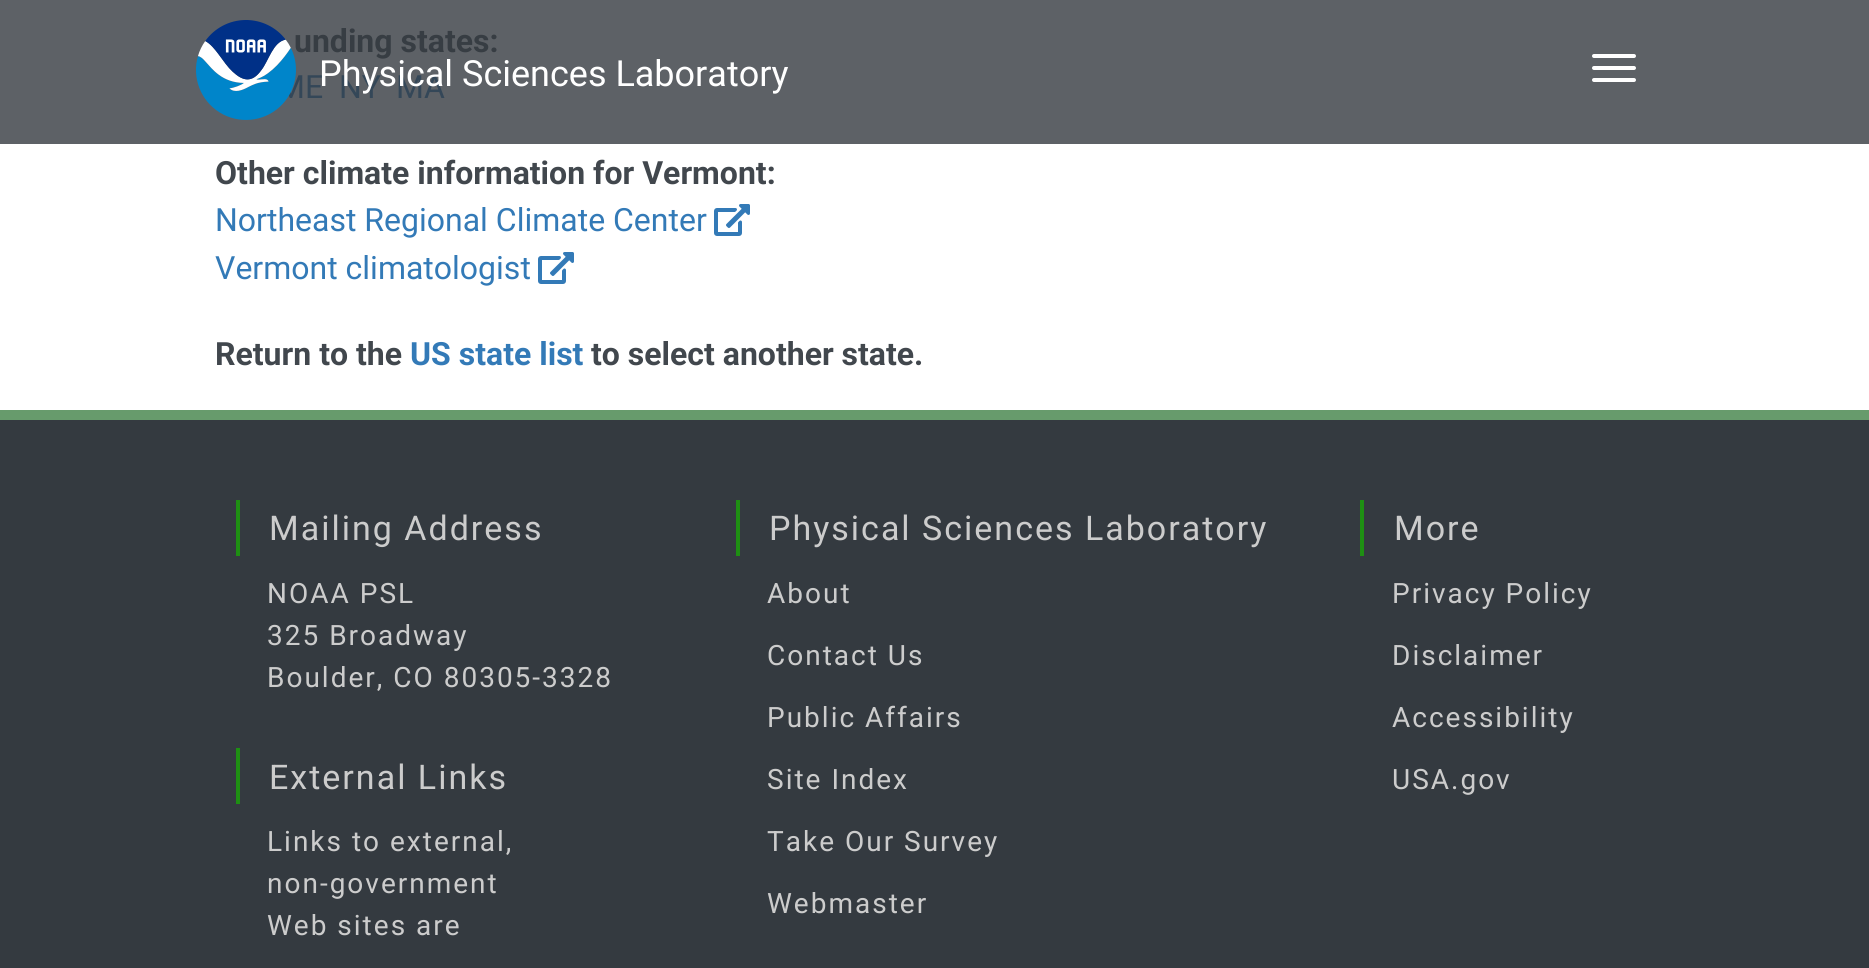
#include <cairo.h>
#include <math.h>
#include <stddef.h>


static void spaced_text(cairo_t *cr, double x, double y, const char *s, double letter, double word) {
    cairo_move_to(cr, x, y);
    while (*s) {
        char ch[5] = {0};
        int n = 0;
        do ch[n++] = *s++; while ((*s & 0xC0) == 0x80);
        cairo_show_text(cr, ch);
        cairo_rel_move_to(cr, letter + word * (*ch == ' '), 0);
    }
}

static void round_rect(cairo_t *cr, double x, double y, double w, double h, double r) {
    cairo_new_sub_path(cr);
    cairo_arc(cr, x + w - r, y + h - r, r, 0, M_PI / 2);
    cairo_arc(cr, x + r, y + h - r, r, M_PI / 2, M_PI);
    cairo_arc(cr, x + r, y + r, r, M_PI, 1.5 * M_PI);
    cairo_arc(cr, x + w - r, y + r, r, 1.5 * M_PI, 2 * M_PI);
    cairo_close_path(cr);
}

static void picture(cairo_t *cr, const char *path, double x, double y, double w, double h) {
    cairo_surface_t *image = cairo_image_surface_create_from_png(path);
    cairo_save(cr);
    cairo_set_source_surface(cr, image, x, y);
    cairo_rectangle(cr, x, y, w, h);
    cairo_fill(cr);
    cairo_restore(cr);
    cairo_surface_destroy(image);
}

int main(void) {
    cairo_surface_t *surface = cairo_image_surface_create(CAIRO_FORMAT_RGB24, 1869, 968);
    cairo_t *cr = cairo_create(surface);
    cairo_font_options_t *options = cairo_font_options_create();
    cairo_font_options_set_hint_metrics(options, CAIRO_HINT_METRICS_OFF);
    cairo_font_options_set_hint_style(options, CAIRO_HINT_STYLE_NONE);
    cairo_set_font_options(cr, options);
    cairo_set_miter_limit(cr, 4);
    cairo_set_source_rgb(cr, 1, 1, 1);
    cairo_paint(cr);
    cairo_set_source_rgb(cr, 0.365, 0.38, 0.4);
    cairo_rectangle(cr, 0, 0, 1869, 144);
    cairo_fill(cr);
    cairo_select_font_face(cr, "Roboto", CAIRO_FONT_SLANT_NORMAL, CAIRO_FONT_WEIGHT_BOLD);
    cairo_set_font_size(cr, 32);
    cairo_set_source_rgb(cr, 0.216, 0.239, 0.263);
    cairo_move_to(cr, 294, 52);
    cairo_show_text(cr, "unding states:");
    cairo_select_font_face(cr, "Roboto", CAIRO_FONT_SLANT_NORMAL, CAIRO_FONT_WEIGHT_NORMAL);
    cairo_set_source_rgb(cr, 0.204, 0.278, 0.345);
    cairo_move_to(cr, 277, 98);
    cairo_show_text(cr, "ME");
    cairo_move_to(cr, 339, 98);
    cairo_show_text(cr, "NY");
    cairo_move_to(cr, 396, 98);
    cairo_show_text(cr, "MA");
    cairo_select_font_face(cr, "Roboto", CAIRO_FONT_SLANT_NORMAL, CAIRO_FONT_WEIGHT_BOLD);
    cairo_set_source_rgb(cr, 0.255, 0.278, 0.302);
    cairo_move_to(cr, 215, 184);
    cairo_show_text(cr, "Other climate information for Vermont:");
    cairo_select_font_face(cr, "Roboto", CAIRO_FONT_SLANT_NORMAL, CAIRO_FONT_WEIGHT_NORMAL);
    cairo_set_source_rgb(cr, 0.2, 0.478, 0.718);
    cairo_move_to(cr, 215, 231);
    cairo_show_text(cr, "Northeast Regional Climate Center");
    picture(cr, "img1.png", 714, 204, 36, 32);
    cairo_move_to(cr, 215, 279);
    cairo_show_text(cr, "Vermont climatologist");
    picture(cr, "img1.png", 538, 252, 36, 32);
    cairo_select_font_face(cr, "Roboto", CAIRO_FONT_SLANT_NORMAL, CAIRO_FONT_WEIGHT_BOLD);
    cairo_set_source_rgb(cr, 0.255, 0.278, 0.302);
    cairo_move_to(cr, 215, 365);
    cairo_show_text(cr, "Return to the");
    cairo_set_source_rgb(cr, 0.2, 0.478, 0.718);
    cairo_move_to(cr, 410, 365);
    cairo_show_text(cr, "US state list");
    cairo_set_source_rgb(cr, 0.255, 0.278, 0.302);
    cairo_move_to(cr, 591, 365);
    cairo_show_text(cr, "to select another state.");
    picture(cr, "img2.png", 196, 20, 100, 100);
    cairo_select_font_face(cr, "Roboto", CAIRO_FONT_SLANT_NORMAL, CAIRO_FONT_WEIGHT_NORMAL);
    cairo_set_font_size(cr, 36);
    cairo_set_source_rgb(cr, 1, 1, 1);
    cairo_move_to(cr, 319, 86);
    cairo_show_text(cr, "Physical Sciences Laboratory");
    round_rect(cr, 1592, 54, 44, 4, 2);
    cairo_fill(cr);
    round_rect(cr, 1592, 66, 44, 4, 2);
    cairo_fill(cr);
    round_rect(cr, 1592, 78, 44, 4, 2);
    cairo_fill(cr);
    cairo_set_source_rgb(cr, 0.204, 0.227, 0.251);
    cairo_rectangle(cr, 0, 420, 1869, 548);
    cairo_fill(cr);
    cairo_set_source_rgb(cr, 0.404, 0.608, 0.424);
    cairo_rectangle(cr, 0, 410, 1869, 10);
    cairo_fill(cr);
    cairo_set_source_rgb(cr, 0.118, 0.561, 0.075);
    cairo_rectangle(cr, 236, 500, 4, 56);
    cairo_fill(cr);
    cairo_set_font_size(cr, 34);
    cairo_set_source_rgb(cr, 0.8, 0.8, 0.8);
    spaced_text(cr, 269, 540, "Mailing Address", 2, 0);
    cairo_set_font_size(cr, 28);
    spaced_text(cr, 267, 603, "NOAA PSL", 2, 0);
    spaced_text(cr, 267, 645, "325 Broadway", 2, 0);
    spaced_text(cr, 267, 687, "Boulder, CO 80305-3328", 2, 0);
    cairo_set_source_rgb(cr, 0.118, 0.561, 0.075);
    cairo_rectangle(cr, 236, 748, 4, 56);
    cairo_fill(cr);
    cairo_set_font_size(cr, 34);
    cairo_set_source_rgb(cr, 0.8, 0.8, 0.8);
    spaced_text(cr, 269, 789, "External Links", 2, 0);
    cairo_set_font_size(cr, 28);
    spaced_text(cr, 267, 851, "Links to external,", 2, 0);
    spaced_text(cr, 267, 893, "non-government", 2, 0);
    spaced_text(cr, 267, 935, "Web sites are", 2, 0);
    cairo_set_source_rgb(cr, 0.118, 0.561, 0.075);
    cairo_rectangle(cr, 736, 500, 4, 56);
    cairo_fill(cr);
    cairo_set_font_size(cr, 34);
    cairo_set_source_rgb(cr, 0.8, 0.8, 0.8);
    spaced_text(cr, 769, 540, "Physical Sciences Laboratory", 2, 0);
    cairo_set_font_size(cr, 28);
    spaced_text(cr, 767, 603, "About", 2, 0);
    spaced_text(cr, 767, 665, "Contact Us", 2, 0);
    spaced_text(cr, 767, 727, "Public Affairs", 2, 0);
    spaced_text(cr, 767, 789, "Site Index", 2, 0);
    spaced_text(cr, 767, 851, "Take Our Survey", 2, 0);
    spaced_text(cr, 767, 913, "Webmaster", 2, 0);
    cairo_set_source_rgb(cr, 0.118, 0.561, 0.075);
    cairo_rectangle(cr, 1360, 500, 4, 56);
    cairo_fill(cr);
    cairo_set_font_size(cr, 34);
    cairo_set_source_rgb(cr, 0.8, 0.8, 0.8);
    spaced_text(cr, 1394, 540, "More", 2, 0);
    cairo_set_font_size(cr, 28);
    spaced_text(cr, 1392, 603, "Privacy Policy", 2, 0);
    spaced_text(cr, 1392, 665, "Disclaimer", 2, 0);
    spaced_text(cr, 1392, 727, "Accessibility", 2, 0);
    spaced_text(cr, 1392, 789, "USA.gov", 2, 0);
    cairo_surface_write_to_png(surface, "page.png");
    cairo_font_options_destroy(options);
    cairo_destroy(cr);
    cairo_surface_destroy(surface);
    return 0;
}
